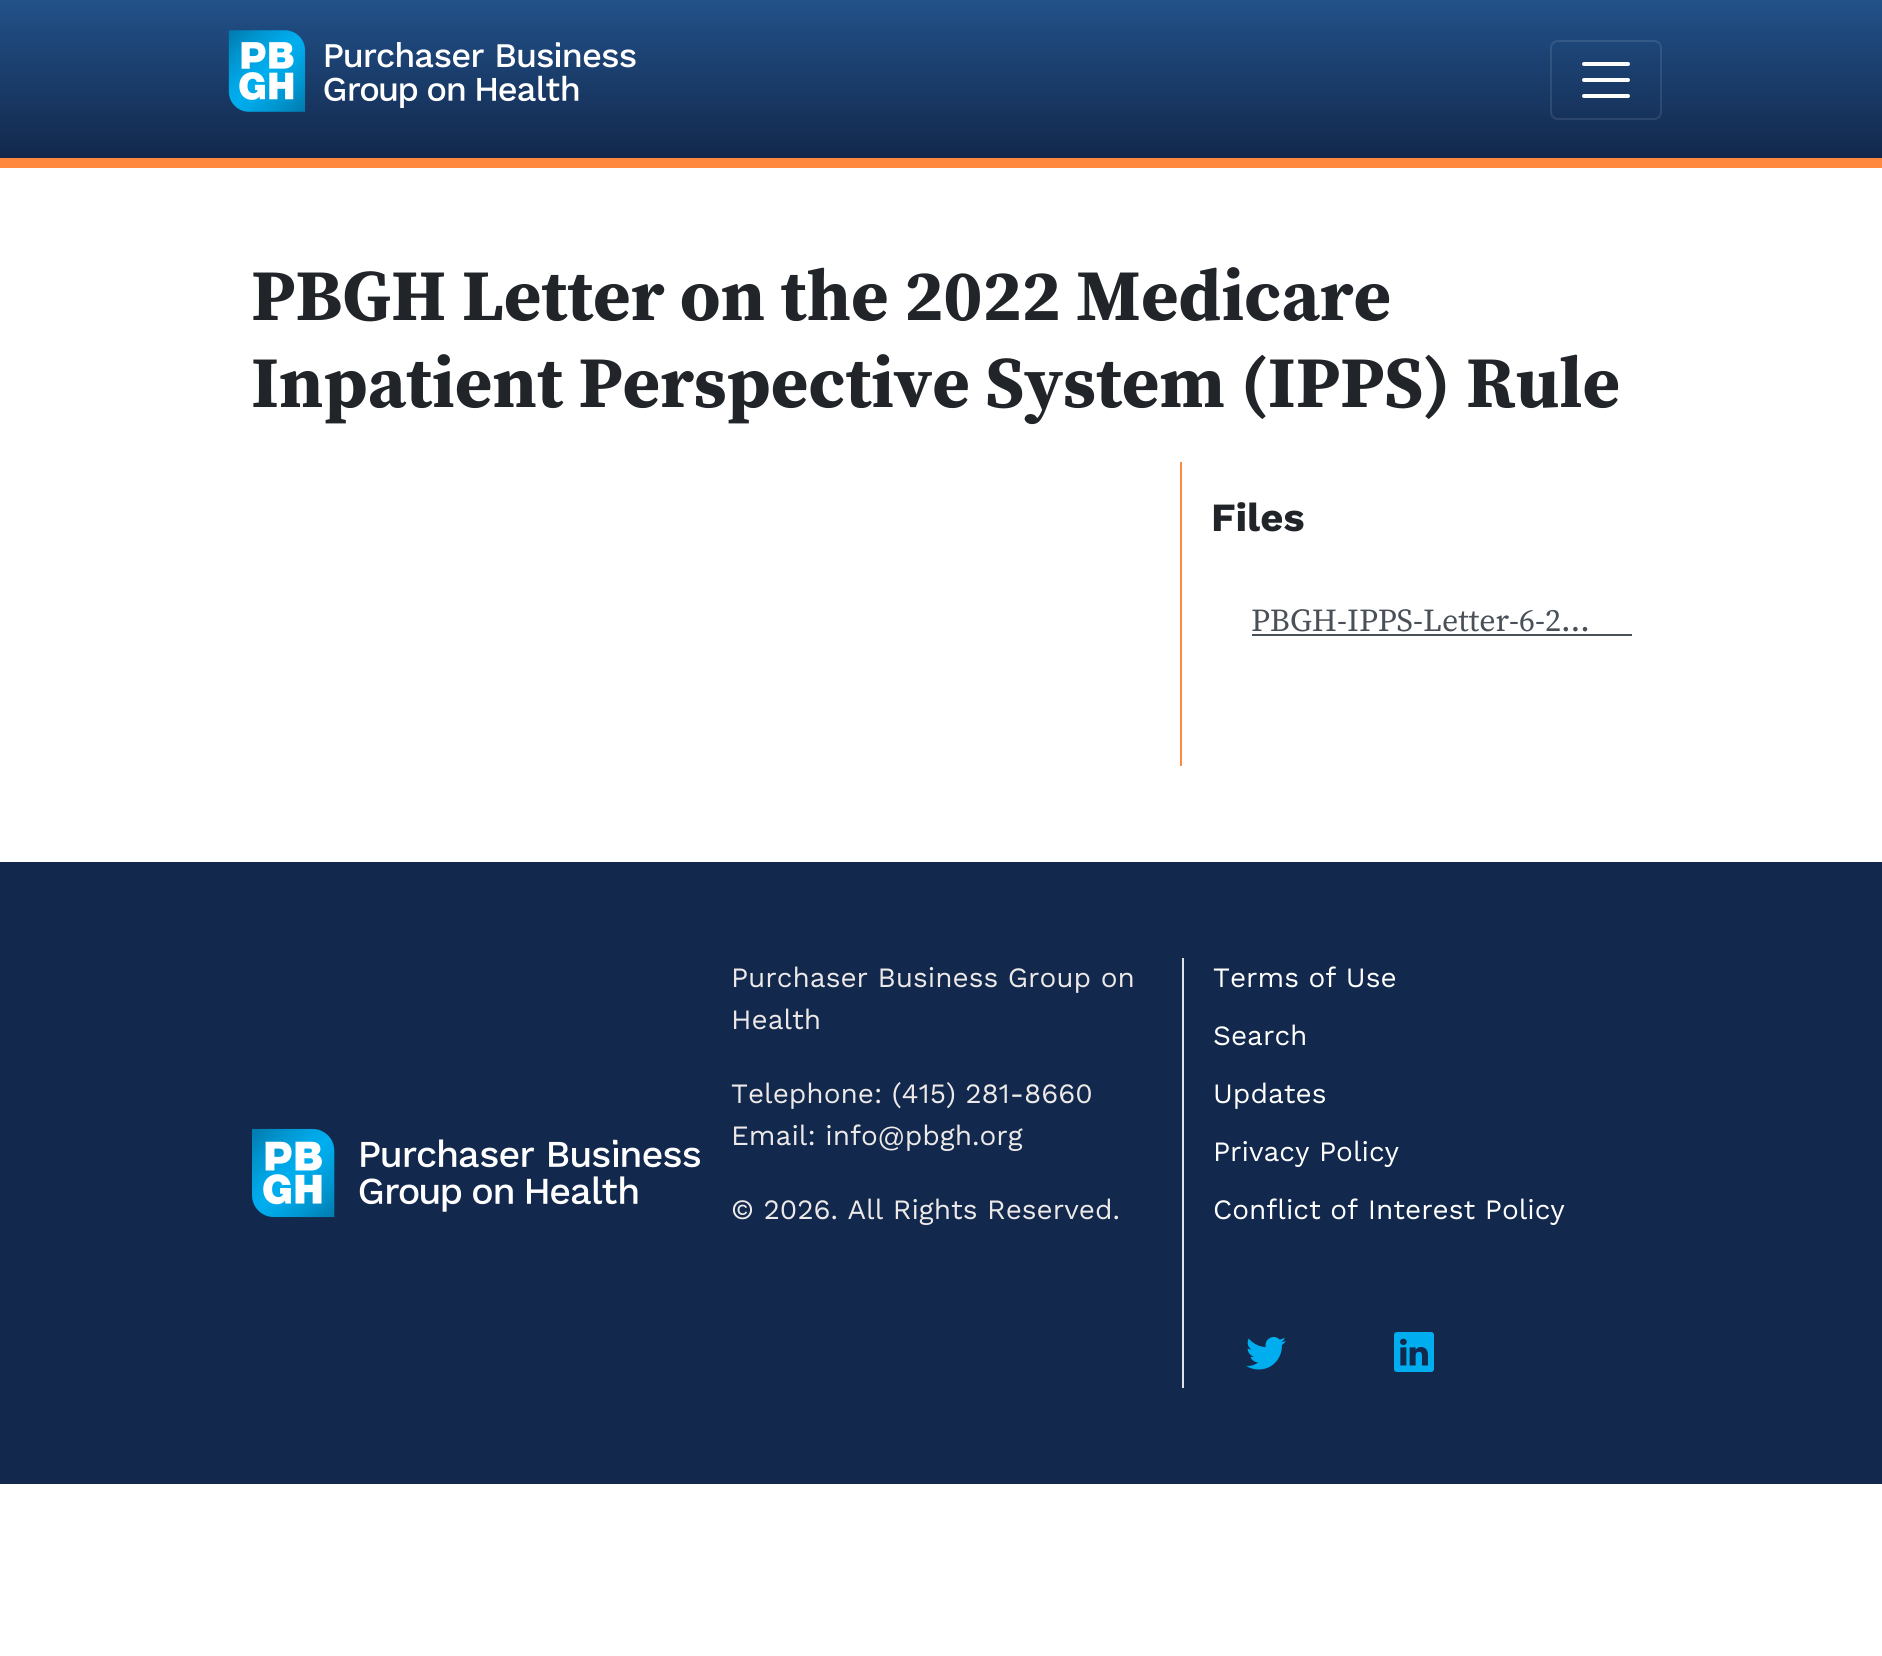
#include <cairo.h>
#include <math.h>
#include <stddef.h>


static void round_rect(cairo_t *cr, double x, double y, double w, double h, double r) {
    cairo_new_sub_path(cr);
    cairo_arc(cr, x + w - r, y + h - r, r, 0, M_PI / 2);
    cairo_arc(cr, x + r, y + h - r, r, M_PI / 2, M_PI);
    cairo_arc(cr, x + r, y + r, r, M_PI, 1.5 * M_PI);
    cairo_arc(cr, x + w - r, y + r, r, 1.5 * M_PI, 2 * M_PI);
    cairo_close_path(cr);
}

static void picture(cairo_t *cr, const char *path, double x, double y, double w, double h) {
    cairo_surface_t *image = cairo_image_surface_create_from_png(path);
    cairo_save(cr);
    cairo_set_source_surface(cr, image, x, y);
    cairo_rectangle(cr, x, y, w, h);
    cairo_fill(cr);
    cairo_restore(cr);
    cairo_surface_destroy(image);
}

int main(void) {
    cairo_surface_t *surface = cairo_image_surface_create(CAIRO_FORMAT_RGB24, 1882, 1656);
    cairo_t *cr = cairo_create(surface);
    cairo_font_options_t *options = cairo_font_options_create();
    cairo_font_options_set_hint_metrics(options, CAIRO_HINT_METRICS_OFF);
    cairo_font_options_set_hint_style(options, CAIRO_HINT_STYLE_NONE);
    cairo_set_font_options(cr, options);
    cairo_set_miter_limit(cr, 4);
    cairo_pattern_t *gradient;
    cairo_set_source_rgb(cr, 1, 1, 1);
    cairo_paint(cr);
    gradient = cairo_pattern_create_linear(941, 0, 941, 158);
    cairo_pattern_add_color_stop_rgba(gradient, 0, 0.133, 0.318, 0.537, 1);
    cairo_pattern_add_color_stop_rgba(gradient, 1, 0.071, 0.157, 0.298, 1);
    cairo_set_source(cr, gradient);
    cairo_pattern_destroy(gradient);
    cairo_rectangle(cr, 0, 0, 1882, 158);
    cairo_fill(cr);
    cairo_set_source_rgb(cr, 1, 0.537, 0.243);
    cairo_rectangle(cr, 0, 158, 1882, 10);
    cairo_fill(cr);
    picture(cr, "img1.png", 228, 30, 78, 82);
    picture(cr, "img2.png", 324, 42, 312, 66);
    round_rect(cr, 1551, 41, 110, 78, 7);
    cairo_set_source_rgba(cr, 1, 1, 1, 0.1);
    cairo_stroke(cr);
    cairo_new_path(cr);
    cairo_move_to(cr, 1584, 64);
    cairo_line_to(cr, 1628, 64);
    cairo_move_to(cr, 1584, 80);
    cairo_line_to(cr, 1628, 80);
    cairo_move_to(cr, 1584, 96);
    cairo_line_to(cr, 1628, 96);
    cairo_set_source_rgb(cr, 1, 1, 1);
    cairo_set_line_width(cr, 4);
    cairo_set_line_cap(cr, CAIRO_LINE_CAP_ROUND);
    cairo_stroke(cr);
    cairo_select_font_face(cr, "Source Serif Pro", CAIRO_FONT_SLANT_NORMAL, CAIRO_FONT_WEIGHT_BOLD);
    cairo_set_font_size(cr, 72.25);
    cairo_set_source_rgb(cr, 0.129, 0.145, 0.161);
    cairo_move_to(cr, 251, 320);
    cairo_show_text(cr, "PBGH Letter on the 2022 Medicare");
    cairo_move_to(cr, 251, 407);
    cairo_show_text(cr, "Inpatient Perspective System (IPPS) Rule");
    cairo_set_source_rgb(cr, 1, 0.537, 0.243);
    cairo_rectangle(cr, 1180, 462, 2, 304);
    cairo_fill(cr);
    cairo_select_font_face(cr, "Work Sans", CAIRO_FONT_SLANT_NORMAL, CAIRO_FONT_WEIGHT_BOLD);
    cairo_set_font_size(cr, 40);
    cairo_set_source_rgb(cr, 0.129, 0.145, 0.161);
    cairo_move_to(cr, 1211, 531);
    cairo_show_text(cr, "Files");
    cairo_select_font_face(cr, "Source Serif Pro", CAIRO_FONT_SLANT_NORMAL, CAIRO_FONT_WEIGHT_NORMAL);
    cairo_set_font_size(cr, 32);
    cairo_set_source_rgb(cr, 0.286, 0.314, 0.341);
    cairo_move_to(cr, 1251, 631);
    cairo_show_text(cr, "PBGH-IPPS-Letter-6-2…");
    cairo_rectangle(cr, 1252, 634, 380, 2);
    cairo_fill(cr);
    cairo_set_source_rgb(cr, 0.071, 0.157, 0.298);
    cairo_rectangle(cr, 0, 862, 1882, 622);
    cairo_fill(cr);
    picture(cr, "img3.png", 252, 1128, 448, 90);
    cairo_select_font_face(cr, "Work Sans", CAIRO_FONT_SLANT_NORMAL, CAIRO_FONT_WEIGHT_NORMAL);
    cairo_set_font_size(cr, 28);
    cairo_set_source_rgb(cr, 0.925, 0.914, 0.91);
    cairo_move_to(cr, 731, 987);
    cairo_show_text(cr, "Purchaser Business Group on");
    cairo_move_to(cr, 731, 1029);
    cairo_show_text(cr, "Health");
    cairo_move_to(cr, 731, 1103);
    cairo_show_text(cr, "Telephone: (415) 281-8660");
    cairo_move_to(cr, 731, 1145);
    cairo_show_text(cr, "Email: info@pbgh.org");
    cairo_move_to(cr, 731, 1219);
    cairo_show_text(cr, "© 2026. All Rights Reserved.");
    cairo_set_source_rgb(cr, 0.871, 0.886, 0.902);
    cairo_rectangle(cr, 1182, 958, 2, 430);
    cairo_fill(cr);
    cairo_set_source_rgb(cr, 1, 1, 1);
    cairo_move_to(cr, 1213, 987);
    cairo_show_text(cr, "Terms of Use");
    cairo_move_to(cr, 1213, 1045);
    cairo_show_text(cr, "Search");
    cairo_move_to(cr, 1213, 1103);
    cairo_show_text(cr, "Updates");
    cairo_move_to(cr, 1213, 1161);
    cairo_show_text(cr, "Privacy Policy");
    cairo_move_to(cr, 1213, 1219);
    cairo_show_text(cr, "Conflict of Interest Policy");
    picture(cr, "img4.png", 1246, 1337, 40, 33);
    picture(cr, "img5.png", 1394, 1332, 40, 40);
    cairo_surface_write_to_png(surface, "page.png");
    cairo_font_options_destroy(options);
    cairo_destroy(cr);
    cairo_surface_destroy(surface);
    return 0;
}
